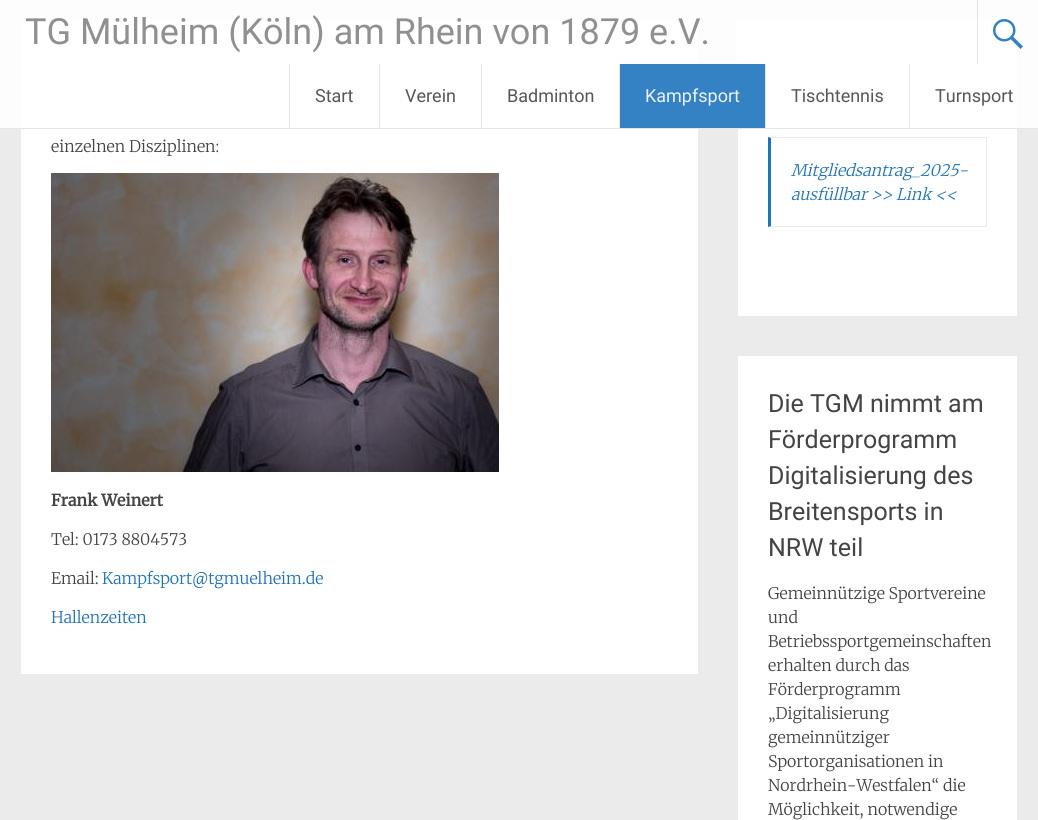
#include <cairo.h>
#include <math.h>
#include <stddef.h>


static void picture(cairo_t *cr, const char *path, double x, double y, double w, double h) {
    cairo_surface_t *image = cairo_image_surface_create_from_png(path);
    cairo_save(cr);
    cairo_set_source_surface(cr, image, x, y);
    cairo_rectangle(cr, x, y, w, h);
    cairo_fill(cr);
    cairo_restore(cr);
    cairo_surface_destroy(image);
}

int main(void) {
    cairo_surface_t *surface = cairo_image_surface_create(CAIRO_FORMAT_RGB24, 1038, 820);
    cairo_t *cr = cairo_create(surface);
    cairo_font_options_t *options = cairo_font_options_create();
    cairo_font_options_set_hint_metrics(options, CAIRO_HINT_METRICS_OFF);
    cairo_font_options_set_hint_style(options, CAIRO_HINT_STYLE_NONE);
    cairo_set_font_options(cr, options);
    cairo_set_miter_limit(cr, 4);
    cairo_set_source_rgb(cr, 0.918, 0.918, 0.918);
    cairo_paint(cr);
    cairo_set_source_rgb(cr, 1, 1, 1);
    cairo_rectangle(cr, 21, 20, 677, 654);
    cairo_fill(cr);
    cairo_rectangle(cr, 738, 20, 279, 296);
    cairo_fill(cr);
    cairo_set_source_rgba(cr, 1, 1, 1, 0.9);
    cairo_rectangle(cr, 0, 0, 1038, 129);
    cairo_fill(cr);
    cairo_set_source_rgba(cr, 0.882, 0.894, 0.902, 0.9);
    cairo_rectangle(cr, 0, 128, 1038, 1);
    cairo_fill(cr);
    cairo_select_font_face(cr, "Roboto", CAIRO_FONT_SLANT_NORMAL, CAIRO_FONT_WEIGHT_NORMAL);
    cairo_set_font_size(cr, 36);
    cairo_set_source_rgb(cr, 0.565, 0.565, 0.565);
    cairo_move_to(cr, 25, 44);
    cairo_show_text(cr, "TG Mülheim (Köln) am Rhein von 1879 e.V.");
    cairo_set_source_rgb(cr, 0.894, 0.906, 0.91);
    cairo_rectangle(cr, 977, 0, 1, 64);
    cairo_fill(cr);
    picture(cr, "img1.png", 993, 19, 30, 30);
    cairo_set_source_rgba(cr, 0.882, 0.894, 0.902, 0.9);
    cairo_rectangle(cr, 289, 64, 1, 64);
    cairo_fill(cr);
    cairo_set_font_size(cr, 18);
    cairo_set_source_rgb(cr, 0.341, 0.341, 0.341);
    cairo_move_to(cr, 315, 102);
    cairo_show_text(cr, "Start");
    cairo_set_source_rgba(cr, 0.882, 0.894, 0.902, 0.9);
    cairo_rectangle(cr, 379, 64, 1, 64);
    cairo_fill(cr);
    cairo_set_source_rgb(cr, 0.341, 0.341, 0.341);
    cairo_move_to(cr, 405, 102);
    cairo_show_text(cr, "Verein");
    cairo_set_source_rgba(cr, 0.882, 0.894, 0.902, 0.9);
    cairo_rectangle(cr, 481, 64, 1, 64);
    cairo_fill(cr);
    cairo_set_source_rgb(cr, 0.341, 0.341, 0.341);
    cairo_move_to(cr, 507, 102);
    cairo_show_text(cr, "Badminton");
    cairo_set_source_rgb(cr, 0.894, 0.906, 0.914);
    cairo_rectangle(cr, 619, 64, 1, 64);
    cairo_fill(cr);
    cairo_set_source_rgb(cr, 0.204, 0.506, 0.769);
    cairo_rectangle(cr, 620, 64, 145, 64);
    cairo_fill(cr);
    cairo_set_source_rgb(cr, 0.922, 0.949, 0.976);
    cairo_move_to(cr, 645, 102);
    cairo_show_text(cr, "Kampfsport");
    cairo_set_source_rgb(cr, 0.894, 0.906, 0.914);
    cairo_rectangle(cr, 765, 64, 1, 64);
    cairo_fill(cr);
    cairo_set_source_rgb(cr, 0.341, 0.341, 0.341);
    cairo_move_to(cr, 791, 102);
    cairo_show_text(cr, "Tischtennis");
    cairo_set_source_rgba(cr, 0.882, 0.894, 0.902, 0.9);
    cairo_rectangle(cr, 909, 64, 1, 64);
    cairo_fill(cr);
    cairo_set_source_rgb(cr, 0.341, 0.341, 0.341);
    cairo_move_to(cr, 935, 102);
    cairo_show_text(cr, "Turnsport");
    cairo_select_font_face(cr, "Merriweather Light", CAIRO_FONT_SLANT_NORMAL, CAIRO_FONT_WEIGHT_NORMAL);
    cairo_set_font_size(cr, 16);
    cairo_set_source_rgb(cr, 0.267, 0.267, 0.267);
    cairo_move_to(cr, 51, 152);
    cairo_show_text(cr, "einzelnen Disziplinen:");
    picture(cr, "img2.png", 51, 173, 448, 299);
    cairo_select_font_face(cr, "Merriweather", CAIRO_FONT_SLANT_NORMAL, CAIRO_FONT_WEIGHT_BOLD);
    cairo_move_to(cr, 51, 506);
    cairo_show_text(cr, "Frank Weinert");
    cairo_select_font_face(cr, "Merriweather Light", CAIRO_FONT_SLANT_NORMAL, CAIRO_FONT_WEIGHT_NORMAL);
    cairo_move_to(cr, 51, 545);
    cairo_show_text(cr, "Tel: 0173 8804573");
    cairo_move_to(cr, 51, 584);
    cairo_show_text(cr, "Email:");
    cairo_set_source_rgb(cr, 0.118, 0.451, 0.745);
    cairo_move_to(cr, 102, 584);
    cairo_show_text(cr, "Kampfsport@tgmuelheim.de");
    cairo_move_to(cr, 51, 623);
    cairo_show_text(cr, "Hallenzeiten");
    cairo_set_source_rgb(cr, 0.918, 0.918, 0.918);
    cairo_new_path(cr);
    cairo_move_to(cr, 768, 137);
    cairo_line_to(cr, 987, 137);
    cairo_line_to(cr, 986, 138);
    cairo_line_to(cr, 771, 138);
    cairo_close_path(cr);
    cairo_fill(cr);
    cairo_rectangle(cr, 986, 137, 1, 90);
    cairo_fill(cr);
    cairo_new_path(cr);
    cairo_move_to(cr, 987, 227);
    cairo_line_to(cr, 768, 227);
    cairo_line_to(cr, 771, 226);
    cairo_line_to(cr, 986, 226);
    cairo_close_path(cr);
    cairo_fill(cr);
    cairo_set_source_rgb(cr, 0.118, 0.451, 0.745);
    cairo_new_path(cr);
    cairo_move_to(cr, 768, 227);
    cairo_line_to(cr, 768, 137);
    cairo_line_to(cr, 771, 138);
    cairo_line_to(cr, 771, 226);
    cairo_close_path(cr);
    cairo_fill(cr);
    cairo_select_font_face(cr, "Merriweather Light", CAIRO_FONT_SLANT_ITALIC, CAIRO_FONT_WEIGHT_NORMAL);
    cairo_move_to(cr, 791, 176);
    cairo_show_text(cr, "Mitgliedsantrag_2025-");
    cairo_move_to(cr, 791, 200);
    cairo_show_text(cr, "ausfüllbar >> Link <<");
    cairo_set_source_rgb(cr, 1, 1, 1);
    cairo_rectangle(cr, 738, 356, 279, 464);
    cairo_fill(cr);
    cairo_select_font_face(cr, "Roboto", CAIRO_FONT_SLANT_NORMAL, CAIRO_FONT_WEIGHT_NORMAL);
    cairo_set_font_size(cr, 25);
    cairo_set_source_rgb(cr, 0.267, 0.267, 0.267);
    cairo_move_to(cr, 768, 412);
    cairo_show_text(cr, "Die TGM nimmt am");
    cairo_move_to(cr, 768, 448);
    cairo_show_text(cr, "Förderprogramm");
    cairo_move_to(cr, 768, 484);
    cairo_show_text(cr, "Digitalisierung des");
    cairo_move_to(cr, 768, 520);
    cairo_show_text(cr, "Breitensports in");
    cairo_move_to(cr, 768, 556);
    cairo_show_text(cr, "NRW teil");
    cairo_select_font_face(cr, "Merriweather Light", CAIRO_FONT_SLANT_NORMAL, CAIRO_FONT_WEIGHT_NORMAL);
    cairo_set_font_size(cr, 16);
    cairo_move_to(cr, 768, 599);
    cairo_show_text(cr, "Gemeinnützige Sportvereine");
    cairo_move_to(cr, 768, 623);
    cairo_show_text(cr, "und");
    cairo_move_to(cr, 768, 647);
    cairo_show_text(cr, "Betriebssportgemeinschaften");
    cairo_move_to(cr, 768, 671);
    cairo_show_text(cr, "erhalten durch das");
    cairo_move_to(cr, 768, 695);
    cairo_show_text(cr, "Förderprogramm");
    cairo_move_to(cr, 768, 719);
    cairo_show_text(cr, "„Digitalisierung");
    cairo_move_to(cr, 768, 743);
    cairo_show_text(cr, "gemeinnütziger");
    cairo_move_to(cr, 768, 767);
    cairo_show_text(cr, "Sportorganisationen in");
    cairo_move_to(cr, 768, 791);
    cairo_show_text(cr, "Nordrhein-Westfalen“ die");
    cairo_move_to(cr, 768, 815);
    cairo_show_text(cr, "Möglichkeit, notwendige");
    cairo_surface_write_to_png(surface, "page.png");
    cairo_font_options_destroy(options);
    cairo_destroy(cr);
    cairo_surface_destroy(surface);
    return 0;
}
